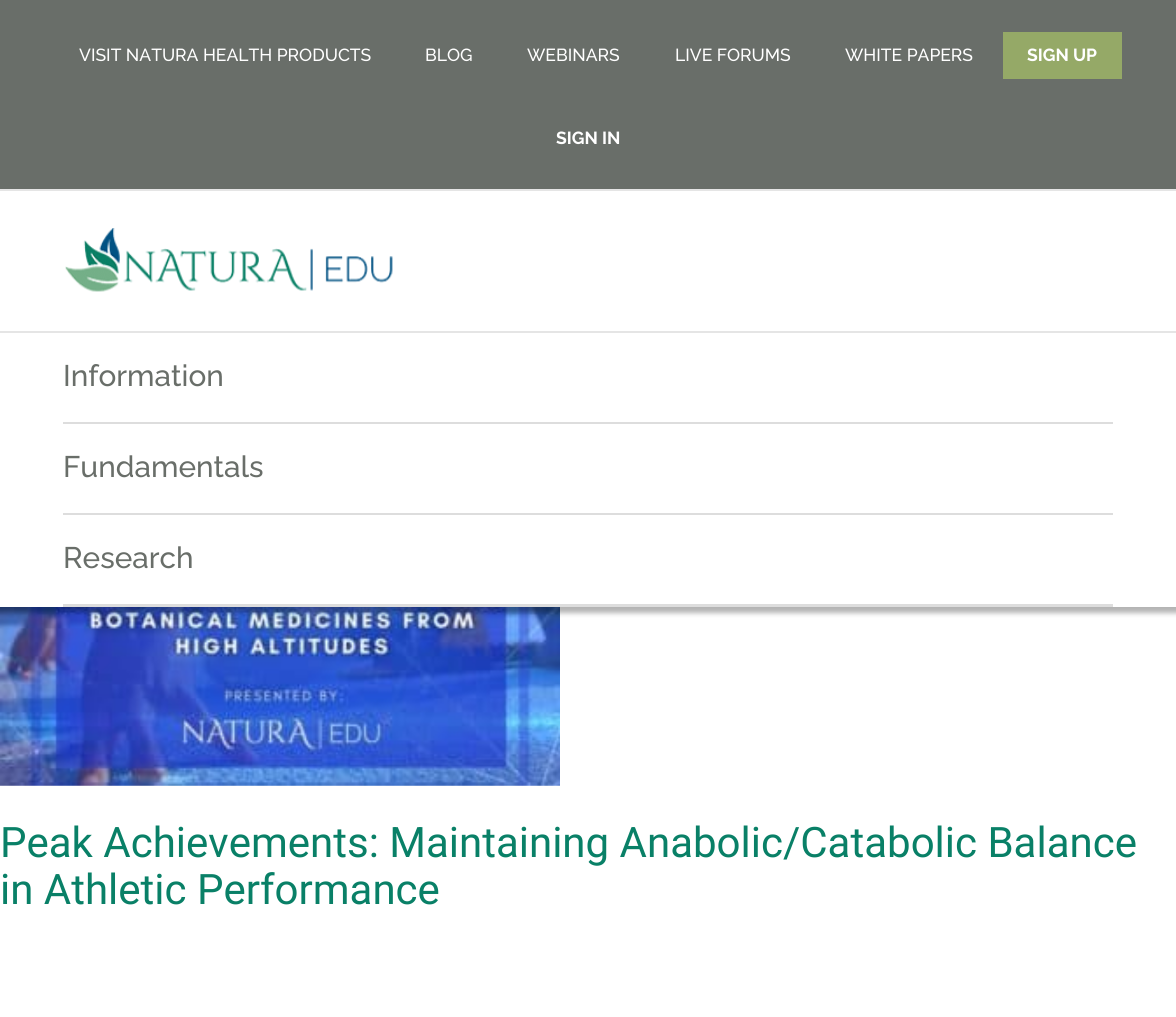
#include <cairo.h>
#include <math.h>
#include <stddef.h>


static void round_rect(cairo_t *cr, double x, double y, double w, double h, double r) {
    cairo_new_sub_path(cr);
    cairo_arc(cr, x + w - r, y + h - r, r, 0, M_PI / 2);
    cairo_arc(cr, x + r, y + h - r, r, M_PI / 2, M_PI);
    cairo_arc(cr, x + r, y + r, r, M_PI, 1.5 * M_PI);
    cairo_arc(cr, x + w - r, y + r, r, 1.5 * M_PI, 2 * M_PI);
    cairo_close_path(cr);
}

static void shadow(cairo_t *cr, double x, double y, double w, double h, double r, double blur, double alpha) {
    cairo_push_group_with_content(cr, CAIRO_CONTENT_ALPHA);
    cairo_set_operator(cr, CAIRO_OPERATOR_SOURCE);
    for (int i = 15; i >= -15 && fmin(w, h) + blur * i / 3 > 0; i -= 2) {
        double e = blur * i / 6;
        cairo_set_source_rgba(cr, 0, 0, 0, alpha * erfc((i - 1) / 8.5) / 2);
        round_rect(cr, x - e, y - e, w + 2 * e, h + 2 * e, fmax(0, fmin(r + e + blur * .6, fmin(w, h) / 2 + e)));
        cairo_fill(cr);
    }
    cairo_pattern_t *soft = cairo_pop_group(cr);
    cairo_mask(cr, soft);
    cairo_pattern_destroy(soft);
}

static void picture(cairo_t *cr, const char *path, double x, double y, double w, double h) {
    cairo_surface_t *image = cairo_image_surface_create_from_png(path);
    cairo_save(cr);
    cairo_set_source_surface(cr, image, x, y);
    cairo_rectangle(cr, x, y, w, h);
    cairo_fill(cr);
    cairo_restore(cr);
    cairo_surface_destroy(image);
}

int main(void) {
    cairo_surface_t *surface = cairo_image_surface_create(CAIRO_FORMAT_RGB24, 1176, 1017);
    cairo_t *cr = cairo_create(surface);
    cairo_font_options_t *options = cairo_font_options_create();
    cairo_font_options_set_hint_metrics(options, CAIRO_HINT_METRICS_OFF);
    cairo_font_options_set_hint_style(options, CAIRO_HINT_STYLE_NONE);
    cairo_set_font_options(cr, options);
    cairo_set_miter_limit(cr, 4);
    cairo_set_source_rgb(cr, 1, 1, 1);
    cairo_paint(cr);
    cairo_set_source_rgb(cr, 0.412, 0.431, 0.412);
    cairo_rectangle(cr, 0, 0, 1176, 189);
    cairo_fill(cr);
    cairo_set_source_rgb(cr, 0.898, 0.898, 0.898);
    cairo_rectangle(cr, 0, 189, 1176, 2);
    cairo_fill(cr);
    cairo_select_font_face(cr, "Raleway Medium", CAIRO_FONT_SLANT_NORMAL, CAIRO_FONT_WEIGHT_NORMAL);
    cairo_set_font_size(cr, 17.5);
    cairo_set_source_rgb(cr, 1, 1, 1);
    cairo_move_to(cr, 79, 61);
    cairo_show_text(cr, "VISIT NATURA HEALTH PRODUCTS");
    cairo_move_to(cr, 425, 61);
    cairo_show_text(cr, "BLOG");
    cairo_move_to(cr, 527, 61);
    cairo_show_text(cr, "WEBINARS");
    cairo_move_to(cr, 675, 61);
    cairo_show_text(cr, "LIVE FORUMS");
    cairo_move_to(cr, 845, 61);
    cairo_show_text(cr, "WHITE PAPERS");
    cairo_set_source_rgb(cr, 0.584, 0.663, 0.404);
    cairo_rectangle(cr, 1003, 32, 119, 47);
    cairo_fill(cr);
    cairo_select_font_face(cr, "Raleway", CAIRO_FONT_SLANT_NORMAL, CAIRO_FONT_WEIGHT_BOLD);
    cairo_set_source_rgb(cr, 1, 1, 1);
    cairo_move_to(cr, 1027, 61);
    cairo_show_text(cr, "SIGN UP");
    cairo_move_to(cr, 556, 144);
    cairo_show_text(cr, "SIGN IN");
    cairo_set_source_rgb(cr, 0.898, 0.898, 0.898);
    cairo_rectangle(cr, 0, 331, 1176, 2);
    cairo_fill(cr);
    picture(cr, "img1.png", 65, 228, 328, 64);
    picture(cr, "img2.png", 0, 607, 560, 179);
    cairo_set_source_rgb(cr, 0, 0, 0);
    shadow(cr, -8, 338, 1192, 275, 0, 2.5, 0.3);
    cairo_set_source_rgb(cr, 1, 1, 1);
    cairo_rectangle(cr, 0, 333, 1176, 274);
    cairo_fill(cr);
    cairo_set_source_rgb(cr, 0.867, 0.867, 0.867);
    cairo_rectangle(cr, 63, 422, 1050, 2);
    cairo_fill(cr);
    cairo_select_font_face(cr, "Raleway Medium", CAIRO_FONT_SLANT_NORMAL, CAIRO_FONT_WEIGHT_NORMAL);
    cairo_set_font_size(cr, 29.75);
    cairo_set_source_rgb(cr, 0.412, 0.431, 0.412);
    cairo_move_to(cr, 63, 386);
    cairo_show_text(cr, "Information");
    cairo_set_source_rgb(cr, 0.867, 0.867, 0.867);
    cairo_rectangle(cr, 63, 513, 1050, 2);
    cairo_fill(cr);
    cairo_set_source_rgb(cr, 0.412, 0.431, 0.412);
    cairo_move_to(cr, 63, 477);
    cairo_show_text(cr, "Fundamentals");
    cairo_set_source_rgb(cr, 0.867, 0.867, 0.867);
    cairo_rectangle(cr, 63, 604, 1050, 3);
    cairo_fill(cr);
    cairo_set_source_rgb(cr, 0.412, 0.431, 0.412);
    cairo_move_to(cr, 63, 568);
    cairo_show_text(cr, "Research");
    cairo_select_font_face(cr, "Roboto", CAIRO_FONT_SLANT_NORMAL, CAIRO_FONT_WEIGHT_NORMAL);
    cairo_set_font_size(cr, 42);
    cairo_set_source_rgb(cr, 0.039, 0.502, 0.404);
    cairo_move_to(cr, 0, 857);
    cairo_show_text(cr, "Peak Achievements: Maintaining Anabolic/Catabolic Balance");
    cairo_move_to(cr, 0, 904);
    cairo_show_text(cr, "in Athletic Performance");
    cairo_surface_write_to_png(surface, "page.png");
    cairo_font_options_destroy(options);
    cairo_destroy(cr);
    cairo_surface_destroy(surface);
    return 0;
}
